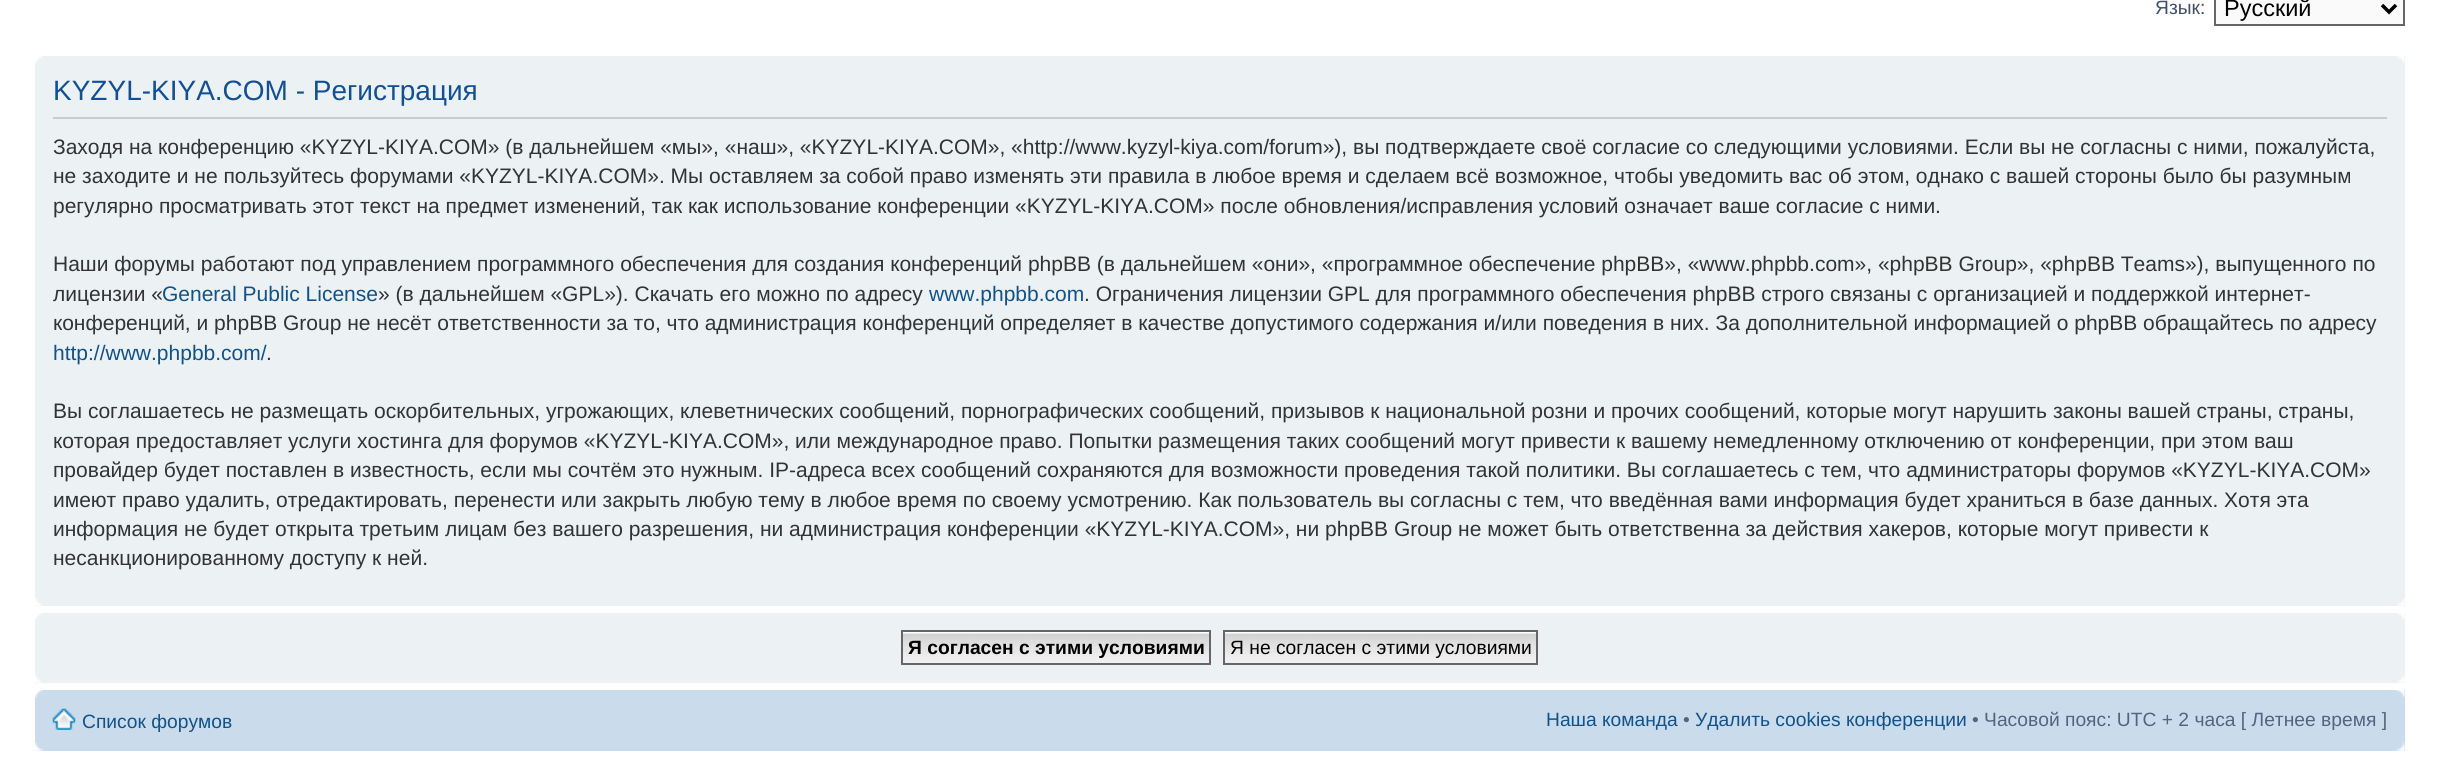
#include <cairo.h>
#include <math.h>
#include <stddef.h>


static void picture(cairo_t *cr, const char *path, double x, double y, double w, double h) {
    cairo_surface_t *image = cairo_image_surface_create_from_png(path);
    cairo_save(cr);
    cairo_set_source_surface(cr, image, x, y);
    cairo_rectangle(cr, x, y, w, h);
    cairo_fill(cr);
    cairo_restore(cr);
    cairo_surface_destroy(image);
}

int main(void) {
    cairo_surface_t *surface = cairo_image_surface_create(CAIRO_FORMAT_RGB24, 2439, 770);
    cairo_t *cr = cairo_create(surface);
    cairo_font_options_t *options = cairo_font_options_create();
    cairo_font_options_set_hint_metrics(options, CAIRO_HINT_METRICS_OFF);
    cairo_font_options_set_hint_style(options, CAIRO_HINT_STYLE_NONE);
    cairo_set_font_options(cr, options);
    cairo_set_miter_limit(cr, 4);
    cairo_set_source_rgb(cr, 1, 1, 1);
    cairo_paint(cr);
    cairo_select_font_face(cr, "Liberation Sans", CAIRO_FONT_SLANT_NORMAL, CAIRO_FONT_WEIGHT_NORMAL);
    cairo_set_font_size(cr, 19.25);
    cairo_set_source_rgb(cr, 0.259, 0.314, 0.404);
    cairo_move_to(cr, 2155, 14);
    cairo_show_text(cr, "Язык:");
    cairo_set_source_rgb(cr, 0.98, 0.98, 0.98);
    cairo_rectangle(cr, 2215, -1, 189, 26);
    cairo_fill_preserve(cr);
    cairo_set_source_rgb(cr, 0.4, 0.4, 0.4);
    cairo_stroke(cr);
    cairo_new_path(cr);
    cairo_move_to(cr, 2382, 5);
    cairo_line_to(cr, 2389, 12);
    cairo_line_to(cr, 2396, 5);
    cairo_set_source_rgb(cr, 0, 0, 0);
    cairo_set_line_width(cr, 3.5);
    cairo_stroke(cr);
    cairo_set_font_size(cr, 23.5);
    cairo_move_to(cr, 2224, 16);
    cairo_show_text(cr, "Русский");
    cairo_set_source_rgb(cr, 0.925, 0.945, 0.953);
    cairo_rectangle(cr, 35, 56, 2370, 550);
    cairo_fill(cr);
    picture(cr, "img1.png", 35, 56, 8, 8);
    picture(cr, "img2.png", 2396, 56, 9, 8);
    cairo_set_source_rgb(cr, 0.8, 0.8, 0.8);
    cairo_rectangle(cr, 53, 117, 2334, 2);
    cairo_fill(cr);
    cairo_set_font_size(cr, 28);
    cairo_set_source_rgb(cr, 0.067, 0.314, 0.596);
    cairo_move_to(cr, 53, 100);
    cairo_show_text(cr, "KYZYL-KIYA.COM - Регистрация");
    cairo_set_font_size(cr, 21);
    cairo_set_source_rgb(cr, 0.2, 0.2, 0.2);
    cairo_move_to(cr, 53, 154);
    cairo_show_text(cr, "Заходя на конференцию «KYZYL-KIYA.COM» (в дальнейшем «мы», «наш», «KYZYL-KIYA.COM», «http://www.kyzyl-kiya.com/forum»), вы подтверждаете своё согласие со следующими условиями. Если вы не согласны с ними, пожалуйста,");
    cairo_move_to(cr, 53, 183);
    cairo_show_text(cr, "не заходите и не пользуйтесь форумами «KYZYL-KIYA.COM». Мы оставляем за собой право изменять эти правила в любое время и сделаем всё возможное, чтобы уведомить вас об этом, однако с вашей стороны было бы разумным");
    cairo_move_to(cr, 53, 213);
    cairo_show_text(cr, "регулярно просматривать этот текст на предмет изменений, так как использование конференции «KYZYL-KIYA.COM» после обновления/исправления условий означает ваше согласие с ними.");
    cairo_move_to(cr, 53, 271);
    cairo_show_text(cr, "Наши форумы работают под управлением программного обеспечения для создания конференций phpBB (в дальнейшем «они», «программное обеспечение phpBB», «www.phpbb.com», «phpBB Group», «phpBB Teams»), выпущенного по");
    cairo_move_to(cr, 53, 301);
    cairo_show_text(cr, "лицензии «");
    cairo_set_source_rgb(cr, 0.063, 0.322, 0.537);
    cairo_move_to(cr, 162, 301);
    cairo_show_text(cr, "General Public License");
    cairo_set_source_rgb(cr, 0.2, 0.2, 0.2);
    cairo_move_to(cr, 378, 301);
    cairo_show_text(cr, "» (в дальнейшем «GPL»). Скачать его можно по адресу");
    cairo_set_source_rgb(cr, 0.063, 0.322, 0.537);
    cairo_move_to(cr, 929, 301);
    cairo_show_text(cr, "www.phpbb.com");
    cairo_set_source_rgb(cr, 0.2, 0.2, 0.2);
    cairo_move_to(cr, 1084, 301);
    cairo_show_text(cr, ". Ограничения лицензии GPL для программного обеспечения phpBB строго связаны с организацией и поддержкой интернет-");
    cairo_move_to(cr, 53, 330);
    cairo_show_text(cr, "конференций, и phpBB Group не несёт ответственности за то, что администрация конференций определяет в качестве допустимого содержания и/или поведения в них. За дополнительной информацией о phpBB обращайтесь по адресу");
    cairo_set_source_rgb(cr, 0.063, 0.322, 0.537);
    cairo_move_to(cr, 53, 360);
    cairo_show_text(cr, "http://www.phpbb.com/");
    cairo_set_source_rgb(cr, 0.2, 0.2, 0.2);
    cairo_move_to(cr, 266, 360);
    cairo_show_text(cr, ".");
    cairo_move_to(cr, 53, 418);
    cairo_show_text(cr, "Вы соглашаетесь не размещать оскорбительных, угрожающих, клеветнических сообщений, порнографических сообщений, призывов к национальной розни и прочих сообщений, которые могут нарушить законы вашей страны, страны,");
    cairo_move_to(cr, 53, 448);
    cairo_show_text(cr, "которая предоставляет услуги хостинга для форумов «KYZYL-KIYA.COM», или международное право. Попытки размещения таких сообщений могут привести к вашему немедленному отключению от конференции, при этом ваш");
    cairo_move_to(cr, 53, 477);
    cairo_show_text(cr, "провайдер будет поставлен в известность, если мы сочтём это нужным. IP-адреса всех сообщений сохраняются для возможности проведения такой политики. Вы соглашаетесь с тем, что администраторы форумов «KYZYL-KIYA.COM»");
    cairo_move_to(cr, 53, 507);
    cairo_show_text(cr, "имеют право удалить, отредактировать, перенести или закрыть любую тему в любое время по своему усмотрению. Как пользователь вы согласны с тем, что введённая вами информация будет храниться в базе данных. Хотя эта");
    cairo_move_to(cr, 53, 536);
    cairo_show_text(cr, "информация не будет открыта третьим лицам без вашего разрешения, ни администрация конференции «KYZYL-KIYA.COM», ни phpBB Group не может быть ответственна за действия хакеров, которые могут привести к");
    cairo_move_to(cr, 53, 565);
    cairo_show_text(cr, "несанкционированному доступу к ней.");
    picture(cr, "img3.png", 35, 597, 8, 9);
    picture(cr, "img4.png", 2397, 598, 8, 8);
    cairo_set_source_rgb(cr, 0.925, 0.945, 0.953);
    cairo_rectangle(cr, 35, 613, 2370, 70);
    cairo_fill(cr);
    picture(cr, "img5.png", 35, 613, 8, 8);
    picture(cr, "img6.png", 2397, 613, 8, 7);
    picture(cr, "img7.png", 903, 632, 306, 31);
    cairo_rectangle(cr, 902, 631, 308, 33);
    cairo_set_source_rgb(cr, 0.4, 0.4, 0.4);
    cairo_set_line_width(cr, 2);
    cairo_stroke(cr);
    cairo_select_font_face(cr, "Liberation Sans", CAIRO_FONT_SLANT_NORMAL, CAIRO_FONT_WEIGHT_BOLD);
    cairo_set_font_size(cr, 19.25);
    cairo_set_source_rgb(cr, 0, 0, 0);
    cairo_move_to(cr, 908, 654);
    cairo_show_text(cr, "Я согласен с этими условиями");
    picture(cr, "img8.png", 1225, 632, 314, 33);
    cairo_rectangle(cr, 1224, 631, 313, 33);
    cairo_set_source_rgb(cr, 0.4, 0.4, 0.4);
    cairo_stroke(cr);
    cairo_select_font_face(cr, "Liberation Sans", CAIRO_FONT_SLANT_NORMAL, CAIRO_FONT_WEIGHT_NORMAL);
    cairo_set_source_rgb(cr, 0, 0, 0);
    cairo_move_to(cr, 1230, 654);
    cairo_show_text(cr, "Я не согласен с этими условиями");
    picture(cr, "img3.png", 35, 674, 8, 9);
    picture(cr, "img4.png", 2397, 675, 8, 8);
    cairo_set_source_rgb(cr, 0.792, 0.863, 0.922);
    cairo_rectangle(cr, 35, 690, 2370, 61);
    cairo_fill(cr);
    picture(cr, "img9.png", 35, 690, 9, 8);
    picture(cr, "img10.png", 2395, 690, 10, 8);
    picture(cr, "img11.png", 52, 708, 24, 22);
    cairo_set_source_rgb(cr, 0.063, 0.322, 0.537);
    cairo_move_to(cr, 82, 728);
    cairo_show_text(cr, "Список форумов");
    cairo_move_to(cr, 1546, 726);
    cairo_show_text(cr, "Наша команда");
    cairo_set_source_rgb(cr, 0.325, 0.392, 0.51);
    cairo_move_to(cr, 1683, 726);
    cairo_show_text(cr, "•");
    cairo_set_source_rgb(cr, 0.063, 0.322, 0.537);
    cairo_move_to(cr, 1695, 726);
    cairo_show_text(cr, "Удалить cookies конференции");
    cairo_set_source_rgb(cr, 0.325, 0.392, 0.51);
    cairo_move_to(cr, 1972, 726);
    cairo_show_text(cr, "• Часовой пояс: UTC + 2 часа [ Летнее время ]");
    picture(cr, "img12.png", 35, 742, 9, 9);
    picture(cr, "img13.png", 2396, 742, 9, 9);
    cairo_surface_write_to_png(surface, "page.png");
    cairo_font_options_destroy(options);
    cairo_destroy(cr);
    cairo_surface_destroy(surface);
    return 0;
}
